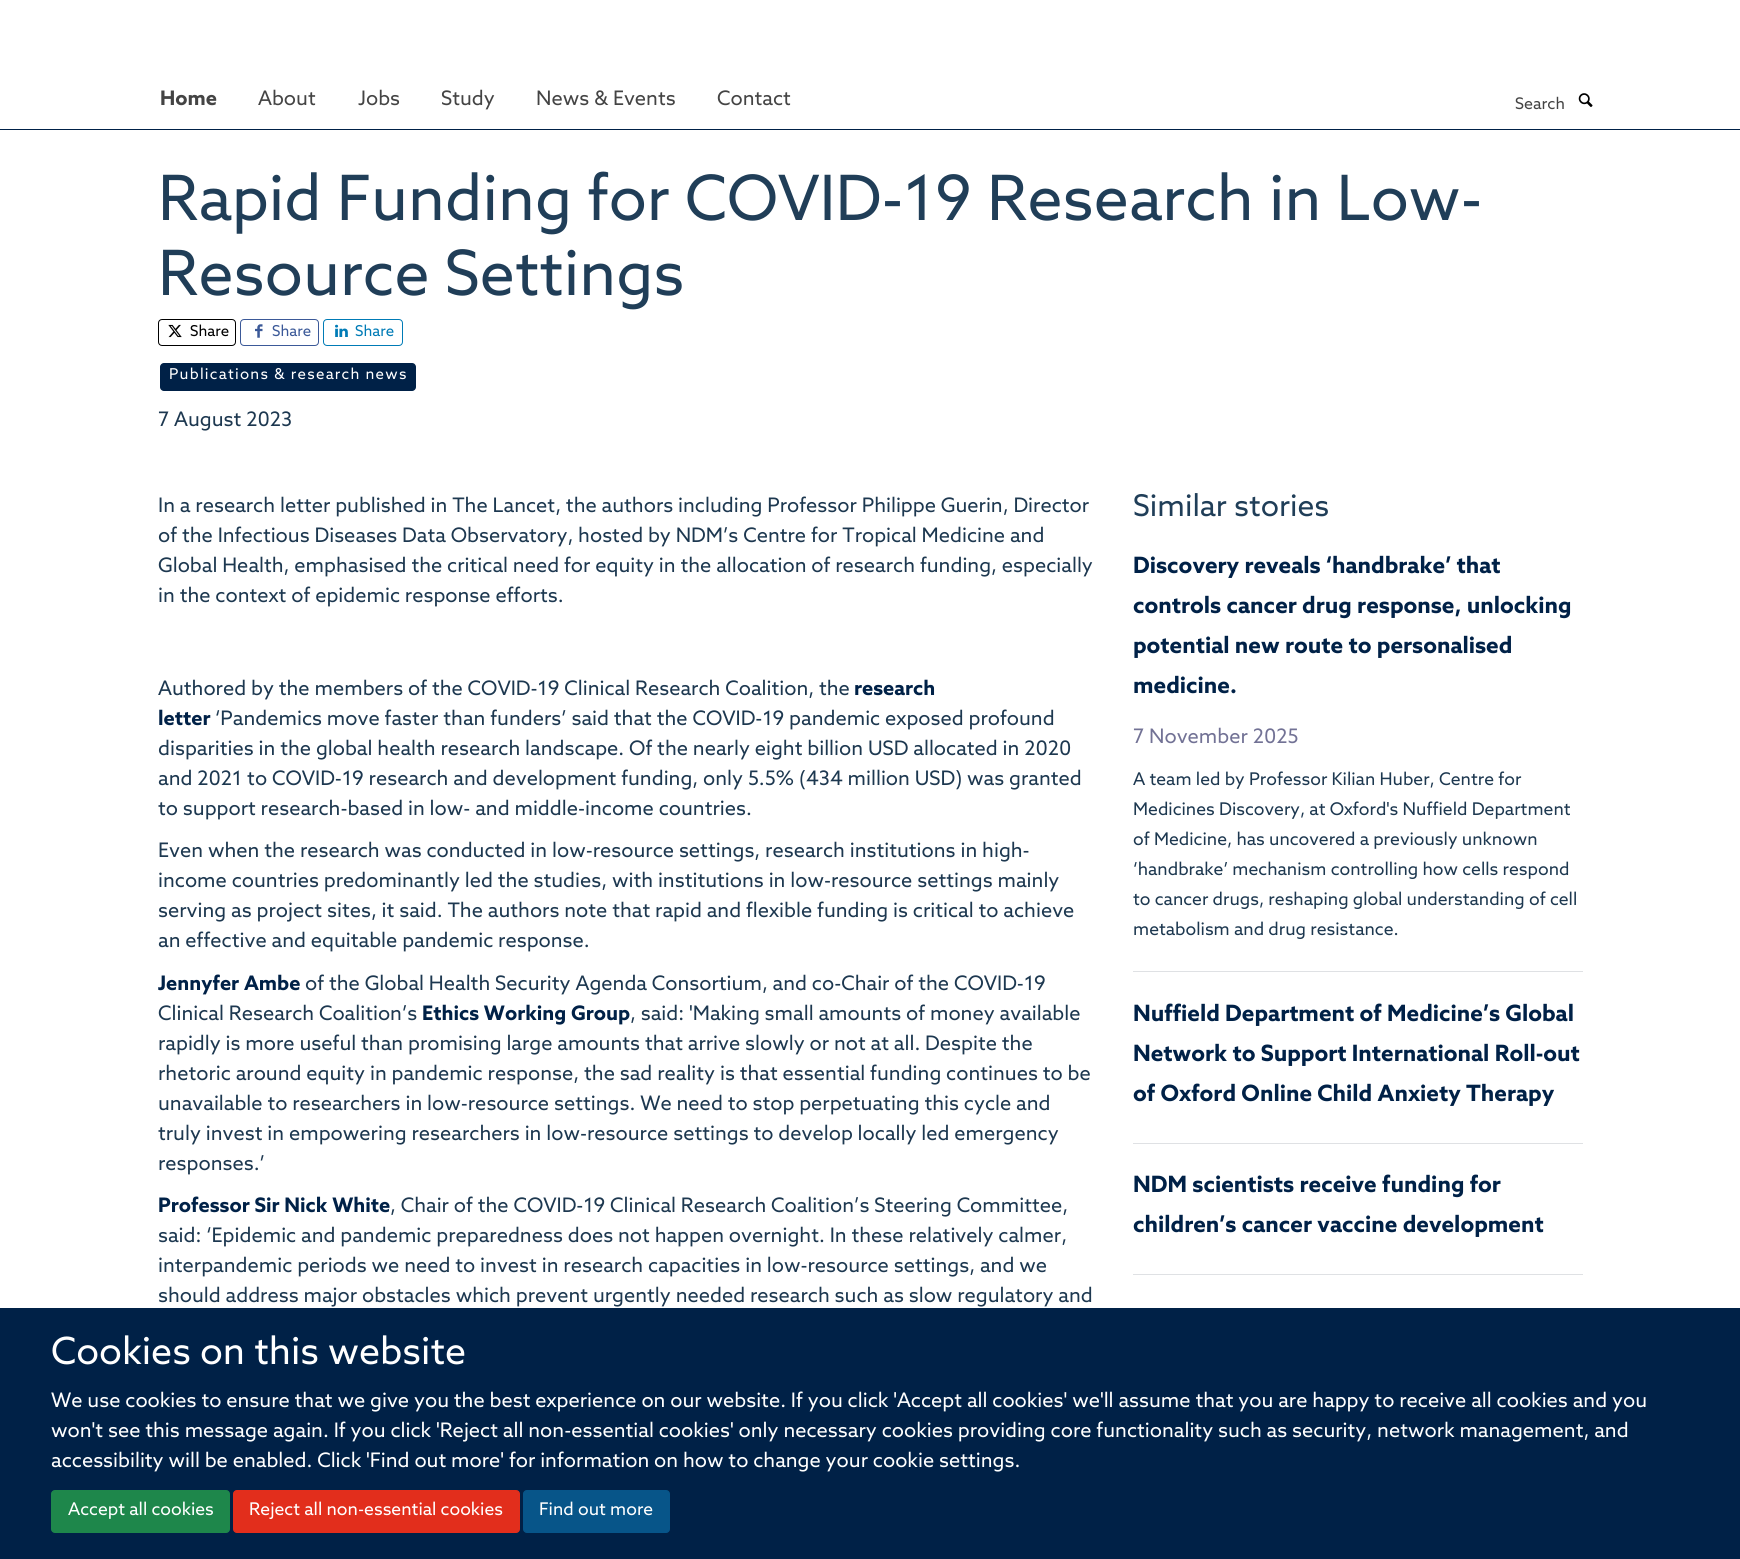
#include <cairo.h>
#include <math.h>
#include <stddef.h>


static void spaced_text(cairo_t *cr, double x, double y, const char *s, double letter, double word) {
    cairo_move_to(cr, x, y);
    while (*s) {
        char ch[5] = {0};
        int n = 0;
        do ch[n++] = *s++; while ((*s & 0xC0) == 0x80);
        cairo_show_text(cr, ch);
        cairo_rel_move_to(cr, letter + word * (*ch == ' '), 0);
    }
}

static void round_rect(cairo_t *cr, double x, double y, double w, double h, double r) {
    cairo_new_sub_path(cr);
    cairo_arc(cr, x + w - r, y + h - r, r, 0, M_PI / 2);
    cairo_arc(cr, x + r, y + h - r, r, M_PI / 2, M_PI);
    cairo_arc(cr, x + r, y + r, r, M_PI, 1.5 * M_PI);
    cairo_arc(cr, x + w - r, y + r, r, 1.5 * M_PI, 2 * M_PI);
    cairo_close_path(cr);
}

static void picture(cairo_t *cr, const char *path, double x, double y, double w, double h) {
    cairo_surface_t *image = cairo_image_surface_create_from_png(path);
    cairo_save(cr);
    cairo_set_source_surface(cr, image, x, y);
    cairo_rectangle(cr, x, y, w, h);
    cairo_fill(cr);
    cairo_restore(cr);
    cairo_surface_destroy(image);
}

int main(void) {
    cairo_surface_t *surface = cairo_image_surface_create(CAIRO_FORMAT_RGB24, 1740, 1559);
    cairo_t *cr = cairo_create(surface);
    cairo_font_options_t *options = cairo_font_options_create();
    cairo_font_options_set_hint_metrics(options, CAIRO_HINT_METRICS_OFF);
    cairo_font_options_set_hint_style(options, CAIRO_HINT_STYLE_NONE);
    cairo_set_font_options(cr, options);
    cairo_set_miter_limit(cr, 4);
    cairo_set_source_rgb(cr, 1, 1, 1);
    cairo_paint(cr);
    cairo_set_source_rgb(cr, 0, 0.129, 0.278);
    cairo_rectangle(cr, 0, 129, 1740, 1);
    cairo_fill(cr);
    cairo_select_font_face(cr, "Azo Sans", CAIRO_FONT_SLANT_NORMAL, CAIRO_FONT_WEIGHT_BOLD);
    cairo_set_font_size(cr, 20);
    cairo_set_source_rgb(cr, 0.267, 0.267, 0.267);
    cairo_move_to(cr, 160, 105);
    cairo_show_text(cr, "Home");
    cairo_select_font_face(cr, "Azo Sans", CAIRO_FONT_SLANT_NORMAL, CAIRO_FONT_WEIGHT_NORMAL);
    cairo_move_to(cr, 258, 105);
    cairo_show_text(cr, "About");
    cairo_move_to(cr, 358, 105);
    cairo_show_text(cr, "Jobs");
    cairo_move_to(cr, 441, 105);
    cairo_show_text(cr, "Study");
    cairo_move_to(cr, 536, 105);
    cairo_show_text(cr, "News & Events");
    cairo_move_to(cr, 717, 105);
    cairo_show_text(cr, "Contact");
    cairo_set_font_size(cr, 16);
    cairo_move_to(cr, 1515, 109);
    cairo_show_text(cr, "Search");
    picture(cr, "img1.png", 1578, 93, 15, 14);
    cairo_set_font_size(cr, 62.5);
    cairo_set_source_rgb(cr, 0.125, 0.243, 0.345);
    cairo_move_to(cr, 158, 220);
    cairo_show_text(cr, "Rapid Funding for COVID-19 Research in Low-");
    cairo_move_to(cr, 158, 295);
    cairo_show_text(cr, "Resource Settings");
    round_rect(cr, 158.5, 319.5, 77, 26, 3.5);
    cairo_set_source_rgb(cr, 0, 0, 0);
    cairo_set_line_width(cr, 1);
    cairo_stroke(cr);
    picture(cr, "img2.png", 168, 324, 14, 14);
    cairo_set_font_size(cr, 15);
    cairo_move_to(cr, 190, 336);
    cairo_show_text(cr, "Share");
    round_rect(cr, 240.5, 319.5, 78, 26, 3.5);
    cairo_set_source_rgb(cr, 0.231, 0.349, 0.596);
    cairo_stroke(cr);
    picture(cr, "img3.png", 255, 324, 8, 14);
    cairo_move_to(cr, 272, 336);
    cairo_show_text(cr, "Share");
    round_rect(cr, 323.5, 319.5, 79, 26, 3.5);
    cairo_set_source_rgb(cr, 0, 0.482, 0.714);
    cairo_stroke(cr);
    picture(cr, "img4.png", 335, 324, 13, 13);
    cairo_move_to(cr, 355, 336);
    cairo_show_text(cr, "Share");
    cairo_set_source_rgb(cr, 0, 0.129, 0.278);
    round_rect(cr, 160, 363, 256, 28, 4);
    cairo_fill(cr);
    cairo_set_source_rgb(cr, 1, 1, 1);
    spaced_text(cr, 169, 379, "Publications & research news", 1.25, 0);
    cairo_set_font_size(cr, 20);
    cairo_set_source_rgb(cr, 0.114, 0.22, 0.314);
    cairo_move_to(cr, 158, 426);
    cairo_show_text(cr, "7 August 2023");
    cairo_move_to(cr, 158, 512);
    cairo_show_text(cr, "In a research letter published in The Lancet, the authors including Professor Philippe Guerin, Director");
    cairo_move_to(cr, 158, 542);
    cairo_show_text(cr, "of the Infectious Diseases Data Observatory, hosted by NDM’s Centre for Tropical Medicine and");
    cairo_move_to(cr, 158, 572);
    cairo_show_text(cr, "Global Health, emphasised the critical need for equity in the allocation of research funding, especially");
    cairo_move_to(cr, 158, 602);
    cairo_show_text(cr, "in the context of epidemic response efforts.");
    cairo_move_to(cr, 158, 695);
    cairo_show_text(cr, "Authored by the members of the COVID-19 Clinical Research Coalition, the");
    cairo_select_font_face(cr, "Azo Sans", CAIRO_FONT_SLANT_NORMAL, CAIRO_FONT_WEIGHT_BOLD);
    cairo_set_source_rgb(cr, 0, 0.129, 0.278);
    cairo_move_to(cr, 854, 695);
    cairo_show_text(cr, "research");
    cairo_move_to(cr, 158, 725);
    cairo_show_text(cr, "letter");
    cairo_select_font_face(cr, "Azo Sans", CAIRO_FONT_SLANT_NORMAL, CAIRO_FONT_WEIGHT_NORMAL);
    cairo_set_source_rgb(cr, 0.114, 0.22, 0.314);
    cairo_move_to(cr, 215, 725);
    cairo_show_text(cr, "‘Pandemics move faster than funders’ said that the COVID-19 pandemic exposed profound");
    cairo_move_to(cr, 158, 755);
    cairo_show_text(cr, "disparities in the global health research landscape. Of the nearly eight billion USD allocated in 2020");
    cairo_move_to(cr, 158, 785);
    cairo_show_text(cr, "and 2021 to COVID-19 research and development funding, only 5.5% (434 million USD) was granted");
    cairo_move_to(cr, 158, 815);
    cairo_show_text(cr, "to support research-based in low- and middle-income countries.");
    cairo_move_to(cr, 158, 857);
    cairo_show_text(cr, "Even when the research was conducted in low-resource settings, research institutions in high-");
    cairo_move_to(cr, 158, 887);
    cairo_show_text(cr, "income countries predominantly led the studies, with institutions in low-resource settings mainly");
    cairo_move_to(cr, 158, 917);
    cairo_show_text(cr, "serving as project sites, it said. The authors note that rapid and flexible funding is critical to achieve");
    cairo_move_to(cr, 158, 947);
    cairo_show_text(cr, "an effective and equitable pandemic response.");
    cairo_select_font_face(cr, "Azo Sans", CAIRO_FONT_SLANT_NORMAL, CAIRO_FONT_WEIGHT_BOLD);
    cairo_set_source_rgb(cr, 0, 0.129, 0.278);
    cairo_move_to(cr, 158, 990);
    cairo_show_text(cr, "Jennyfer Ambe");
    cairo_select_font_face(cr, "Azo Sans", CAIRO_FONT_SLANT_NORMAL, CAIRO_FONT_WEIGHT_NORMAL);
    cairo_set_source_rgb(cr, 0.114, 0.22, 0.314);
    cairo_move_to(cr, 305, 990);
    cairo_show_text(cr, "of the Global Health Security Agenda Consortium, and co-Chair of the COVID-19");
    cairo_move_to(cr, 158, 1020);
    cairo_show_text(cr, "Clinical Research Coalition’s");
    cairo_select_font_face(cr, "Azo Sans", CAIRO_FONT_SLANT_NORMAL, CAIRO_FONT_WEIGHT_BOLD);
    cairo_set_source_rgb(cr, 0, 0.129, 0.278);
    cairo_move_to(cr, 422, 1020);
    cairo_show_text(cr, "Ethics Working Group");
    cairo_select_font_face(cr, "Azo Sans", CAIRO_FONT_SLANT_NORMAL, CAIRO_FONT_WEIGHT_NORMAL);
    cairo_set_source_rgb(cr, 0.114, 0.22, 0.314);
    cairo_move_to(cr, 630, 1020);
    cairo_show_text(cr, ", said: 'Making small amounts of money available");
    cairo_move_to(cr, 158, 1050);
    cairo_show_text(cr, "rapidly is more useful than promising large amounts that arrive slowly or not at all. Despite the");
    cairo_move_to(cr, 158, 1080);
    cairo_show_text(cr, "rhetoric around equity in pandemic response, the sad reality is that essential funding continues to be");
    cairo_move_to(cr, 158, 1110);
    cairo_show_text(cr, "unavailable to researchers in low-resource settings. We need to stop perpetuating this cycle and");
    cairo_move_to(cr, 158, 1140);
    cairo_show_text(cr, "truly invest in empowering researchers in low-resource settings to develop locally led emergency");
    cairo_move_to(cr, 158, 1170);
    cairo_show_text(cr, "responses.’");
    cairo_select_font_face(cr, "Azo Sans", CAIRO_FONT_SLANT_NORMAL, CAIRO_FONT_WEIGHT_BOLD);
    cairo_set_source_rgb(cr, 0, 0.129, 0.278);
    cairo_move_to(cr, 158, 1212);
    cairo_show_text(cr, "Professor Sir Nick White");
    cairo_select_font_face(cr, "Azo Sans", CAIRO_FONT_SLANT_NORMAL, CAIRO_FONT_WEIGHT_NORMAL);
    cairo_set_source_rgb(cr, 0.114, 0.22, 0.314);
    cairo_move_to(cr, 390, 1212);
    cairo_show_text(cr, ", Chair of the COVID-19 Clinical Research Coalition’s Steering Committee,");
    cairo_move_to(cr, 158, 1242);
    cairo_show_text(cr, "said: ‘Epidemic and pandemic preparedness does not happen overnight. In these relatively calmer,");
    cairo_move_to(cr, 158, 1272);
    cairo_show_text(cr, "interpandemic periods we need to invest in research capacities in low-resource settings, and we");
    cairo_move_to(cr, 158, 1302);
    cairo_show_text(cr, "should address major obstacles which prevent urgently needed research such as slow regulatory and");
    cairo_set_font_size(cr, 30);
    cairo_set_source_rgb(cr, 0.125, 0.243, 0.345);
    cairo_move_to(cr, 1133, 516);
    cairo_show_text(cr, "Similar stories");
    cairo_set_source_rgb(cr, 0.875, 0.882, 0.894);
    cairo_rectangle(cr, 1133, 971, 450, 1);
    cairo_fill(cr);
    cairo_select_font_face(cr, "Azo Sans", CAIRO_FONT_SLANT_NORMAL, CAIRO_FONT_WEIGHT_BOLD);
    cairo_set_font_size(cr, 22.5);
    cairo_set_source_rgb(cr, 0, 0.129, 0.278);
    cairo_move_to(cr, 1133, 573);
    cairo_show_text(cr, "Discovery reveals ‘handbrake’ that");
    cairo_move_to(cr, 1133, 613);
    cairo_show_text(cr, "controls cancer drug response, unlocking");
    cairo_move_to(cr, 1133, 653);
    cairo_show_text(cr, "potential new route to personalised");
    cairo_move_to(cr, 1133, 693);
    cairo_show_text(cr, "medicine.");
    cairo_select_font_face(cr, "Azo Sans", CAIRO_FONT_SLANT_NORMAL, CAIRO_FONT_WEIGHT_NORMAL);
    cairo_set_font_size(cr, 20);
    cairo_set_source_rgb(cr, 0.447, 0.447, 0.584);
    cairo_move_to(cr, 1133, 743);
    cairo_show_text(cr, "7 November 2025");
    cairo_set_font_size(cr, 17.5);
    cairo_set_source_rgb(cr, 0.114, 0.22, 0.314);
    cairo_move_to(cr, 1133, 785);
    cairo_show_text(cr, "A team led by Professor Kilian Huber, Centre for");
    cairo_move_to(cr, 1133, 815);
    cairo_show_text(cr, "Medicines Discovery, at Oxford's Nuffield Department");
    cairo_move_to(cr, 1133, 845);
    cairo_show_text(cr, "of Medicine, has uncovered a previously unknown");
    cairo_move_to(cr, 1133, 875);
    cairo_show_text(cr, "‘handbrake’ mechanism controlling how cells respond");
    cairo_move_to(cr, 1133, 905);
    cairo_show_text(cr, "to cancer drugs, reshaping global understanding of cell");
    cairo_move_to(cr, 1133, 935);
    cairo_show_text(cr, "metabolism and drug resistance.");
    cairo_set_source_rgb(cr, 0.875, 0.882, 0.894);
    cairo_rectangle(cr, 1133, 1143, 450, 1);
    cairo_fill(cr);
    cairo_select_font_face(cr, "Azo Sans", CAIRO_FONT_SLANT_NORMAL, CAIRO_FONT_WEIGHT_BOLD);
    cairo_set_font_size(cr, 22.5);
    cairo_set_source_rgb(cr, 0, 0.129, 0.278);
    cairo_move_to(cr, 1133, 1021);
    cairo_show_text(cr, "Nuffield Department of Medicine’s Global");
    cairo_move_to(cr, 1133, 1061);
    cairo_show_text(cr, "Network to Support International Roll-out");
    cairo_move_to(cr, 1133, 1101);
    cairo_show_text(cr, "of Oxford Online Child Anxiety Therapy");
    cairo_set_source_rgb(cr, 0.875, 0.882, 0.894);
    cairo_rectangle(cr, 1133, 1274, 450, 1);
    cairo_fill(cr);
    cairo_set_source_rgb(cr, 0, 0.129, 0.278);
    cairo_move_to(cr, 1133, 1192);
    cairo_show_text(cr, "NDM scientists receive funding for");
    cairo_move_to(cr, 1133, 1232);
    cairo_show_text(cr, "children’s cancer vaccine development");
    cairo_rectangle(cr, 0, 1308, 1740, 251);
    cairo_fill(cr);
    cairo_select_font_face(cr, "Azo Sans", CAIRO_FONT_SLANT_NORMAL, CAIRO_FONT_WEIGHT_NORMAL);
    cairo_set_font_size(cr, 37.5);
    cairo_set_source_rgb(cr, 1, 1, 1);
    cairo_move_to(cr, 51, 1364);
    cairo_show_text(cr, "Cookies on this website");
    cairo_set_font_size(cr, 20);
    cairo_move_to(cr, 51, 1407);
    cairo_show_text(cr, "We use cookies to ensure that we give you the best experience on our website. If you click 'Accept all cookies' we'll assume that you are happy to receive all cookies and you");
    cairo_move_to(cr, 51, 1437);
    cairo_show_text(cr, "won't see this message again. If you click 'Reject all non-essential cookies' only necessary cookies providing core functionality such as security, network management, and");
    cairo_move_to(cr, 51, 1467);
    cairo_show_text(cr, "accessibility will be enabled. Click 'Find out more' for information on how to change your cookie settings.");
    cairo_set_source_rgb(cr, 0.118, 0.529, 0.294);
    round_rect(cr, 51.5, 1490.5, 178, 42, 3.5);
    cairo_fill_preserve(cr);
    cairo_stroke(cr);
    cairo_set_font_size(cr, 17.5);
    cairo_set_source_rgb(cr, 1, 1, 1);
    cairo_move_to(cr, 68, 1515);
    cairo_show_text(cr, "Accept all cookies");
    cairo_set_source_rgb(cr, 0.886, 0.18, 0.11);
    round_rect(cr, 233.5, 1490.5, 286, 42, 3.5);
    cairo_fill_preserve(cr);
    cairo_stroke(cr);
    cairo_set_source_rgb(cr, 1, 1, 1);
    cairo_move_to(cr, 249, 1515);
    cairo_show_text(cr, "Reject all non-essential cookies");
    cairo_set_source_rgb(cr, 0.031, 0.333, 0.537);
    round_rect(cr, 523.5, 1490.5, 146, 42, 3.5);
    cairo_fill_preserve(cr);
    cairo_stroke(cr);
    cairo_set_source_rgb(cr, 1, 1, 1);
    cairo_move_to(cr, 539, 1515);
    cairo_show_text(cr, "Find out more");
    cairo_surface_write_to_png(surface, "page.png");
    cairo_font_options_destroy(options);
    cairo_destroy(cr);
    cairo_surface_destroy(surface);
    return 0;
}
